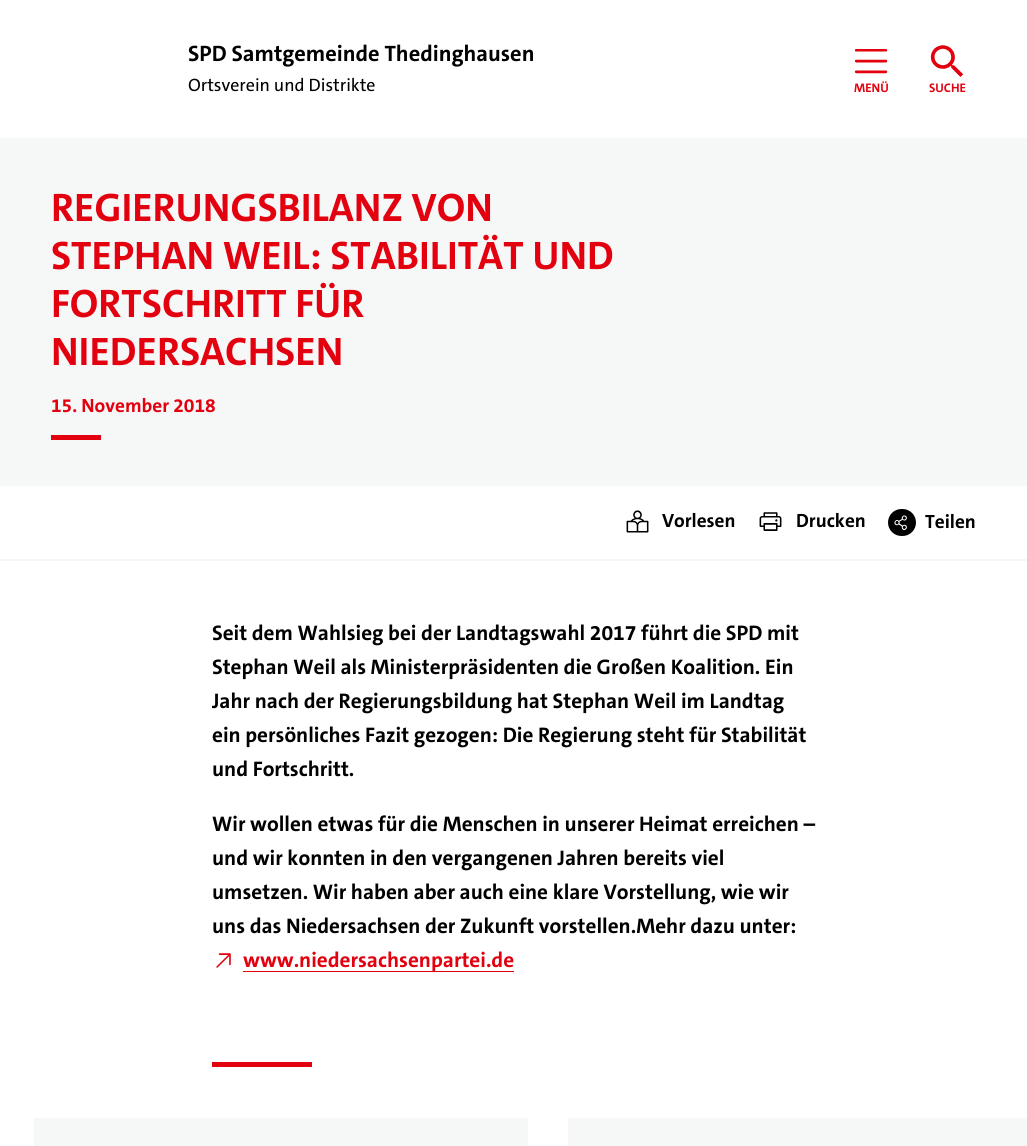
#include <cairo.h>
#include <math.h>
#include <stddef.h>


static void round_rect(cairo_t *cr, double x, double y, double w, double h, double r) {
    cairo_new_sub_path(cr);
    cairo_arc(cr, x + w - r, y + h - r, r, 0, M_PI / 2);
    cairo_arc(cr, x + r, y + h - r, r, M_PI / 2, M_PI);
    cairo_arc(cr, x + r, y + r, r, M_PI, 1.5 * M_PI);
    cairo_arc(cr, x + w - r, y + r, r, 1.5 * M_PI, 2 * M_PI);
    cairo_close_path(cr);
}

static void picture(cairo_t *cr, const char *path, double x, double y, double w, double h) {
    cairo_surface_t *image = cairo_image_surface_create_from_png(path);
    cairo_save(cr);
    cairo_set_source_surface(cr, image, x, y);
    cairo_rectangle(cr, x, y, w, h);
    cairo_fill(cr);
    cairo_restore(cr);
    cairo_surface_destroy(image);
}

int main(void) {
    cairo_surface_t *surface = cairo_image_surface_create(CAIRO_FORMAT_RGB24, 1027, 1146);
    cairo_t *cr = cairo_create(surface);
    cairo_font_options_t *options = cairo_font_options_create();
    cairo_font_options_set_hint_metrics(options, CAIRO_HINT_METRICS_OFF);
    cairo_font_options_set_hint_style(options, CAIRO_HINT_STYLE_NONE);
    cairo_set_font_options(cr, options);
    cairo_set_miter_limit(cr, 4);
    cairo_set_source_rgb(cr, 1, 1, 1);
    cairo_paint(cr);
    cairo_select_font_face(cr, "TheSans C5", CAIRO_FONT_SLANT_NORMAL, CAIRO_FONT_WEIGHT_BOLD);
    cairo_set_font_size(cr, 22.4);
    cairo_set_source_rgb(cr, 0, 0, 0);
    cairo_move_to(cr, 188, 61);
    cairo_show_text(cr, "SPD Samtgemeinde Thedinghausen");
    cairo_select_font_face(cr, "TheSans C5 Medium", CAIRO_FONT_SLANT_NORMAL, CAIRO_FONT_WEIGHT_NORMAL);
    cairo_set_font_size(cr, 18);
    cairo_move_to(cr, 188, 91);
    cairo_show_text(cr, "Ortsverein und Distrikte");
    picture(cr, "img1.png", 854, 49, 34, 25);
    cairo_select_font_face(cr, "TheSans C5", CAIRO_FONT_SLANT_NORMAL, CAIRO_FONT_WEIGHT_BOLD);
    cairo_set_font_size(cr, 12.5);
    cairo_set_source_rgb(cr, 0.89, 0, 0.059);
    cairo_move_to(cr, 854, 92);
    cairo_show_text(cr, "MENÜ");
    picture(cr, "img2.png", 930, 45, 34, 32);
    cairo_move_to(cr, 929, 92);
    cairo_show_text(cr, "SUCHE");
    cairo_set_source_rgb(cr, 0.961, 0.965, 0.965);
    cairo_rectangle(cr, 0, 138, 1027, 348);
    cairo_fill(cr);
    cairo_set_font_size(cr, 40);
    cairo_set_source_rgb(cr, 0.89, 0, 0.059);
    cairo_move_to(cr, 51, 221);
    cairo_show_text(cr, "REGIERUNGSBILANZ VON");
    cairo_move_to(cr, 51, 269);
    cairo_show_text(cr, "STEPHAN WEIL: STABILITÄT UND");
    cairo_move_to(cr, 51, 317);
    cairo_show_text(cr, "FORTSCHRITT FÜR");
    cairo_move_to(cr, 51, 365);
    cairo_show_text(cr, "NIEDERSACHSEN");
    cairo_set_font_size(cr, 19.25);
    cairo_move_to(cr, 51, 412);
    cairo_show_text(cr, "15. November 2018");
    cairo_rectangle(cr, 51, 435, 50, 5);
    cairo_fill(cr);
    cairo_set_source_rgb(cr, 0.961, 0.965, 0.965);
    cairo_rectangle(cr, 0, 559, 1027, 2);
    cairo_fill(cr);
    picture(cr, "img3.png", 626, 510, 23, 23);
    cairo_set_source_rgb(cr, 0, 0, 0);
    cairo_move_to(cr, 662, 527);
    cairo_show_text(cr, "Vorlesen");
    picture(cr, "img4.png", 759, 512, 23, 19);
    cairo_move_to(cr, 796, 527);
    cairo_show_text(cr, "Drucken");
    round_rect(cr, 888, 509, 28, 27, 13.5);
    cairo_fill(cr);
    picture(cr, "img5.png", 894, 515, 13, 15);
    cairo_move_to(cr, 925, 528);
    cairo_show_text(cr, "Teilen");
    cairo_set_font_size(cr, 21.2);
    cairo_move_to(cr, 212, 640);
    cairo_show_text(cr, "Seit dem Wahlsieg bei der Landtagswahl 2017 führt die SPD mit");
    cairo_move_to(cr, 212, 674);
    cairo_show_text(cr, "Stephan Weil als Ministerpräsidenten die Großen Koalition. Ein");
    cairo_move_to(cr, 212, 708);
    cairo_show_text(cr, "Jahr nach der Regierungsbildung hat Stephan Weil im Landtag");
    cairo_move_to(cr, 212, 742);
    cairo_show_text(cr, "ein persönliches Fazit gezogen: Die Regierung steht für Stabilität");
    cairo_move_to(cr, 212, 776);
    cairo_show_text(cr, "und Fortschritt.");
    cairo_move_to(cr, 212, 831);
    cairo_show_text(cr, "Wir wollen etwas für die Menschen in unserer Heimat erreichen –");
    cairo_move_to(cr, 212, 865);
    cairo_show_text(cr, "und wir konnten in den vergangenen Jahren bereits viel");
    cairo_move_to(cr, 212, 899);
    cairo_show_text(cr, "umsetzen. Wir haben aber auch eine klare Vorstellung, wie wir");
    cairo_move_to(cr, 212, 933);
    cairo_show_text(cr, "uns das Niedersachsen der Zukunft vorstellen.Mehr dazu unter:");
    picture(cr, "img6.png", 216, 953, 15, 15);
    cairo_set_source_rgb(cr, 0.89, 0, 0.059);
    cairo_rectangle(cr, 243, 971, 271, 1);
    cairo_fill(cr);
    cairo_move_to(cr, 243, 967);
    cairo_show_text(cr, "www.niedersachsenpartei.de");
    cairo_rectangle(cr, 212, 1062, 100, 5);
    cairo_fill(cr);
    cairo_set_source_rgb(cr, 0.961, 0.965, 0.965);
    cairo_rectangle(cr, 34, 1118, 494, 28);
    cairo_fill(cr);
    cairo_rectangle(cr, 568, 1118, 459, 28);
    cairo_fill(cr);
    cairo_surface_write_to_png(surface, "page.png");
    cairo_font_options_destroy(options);
    cairo_destroy(cr);
    cairo_surface_destroy(surface);
    return 0;
}
